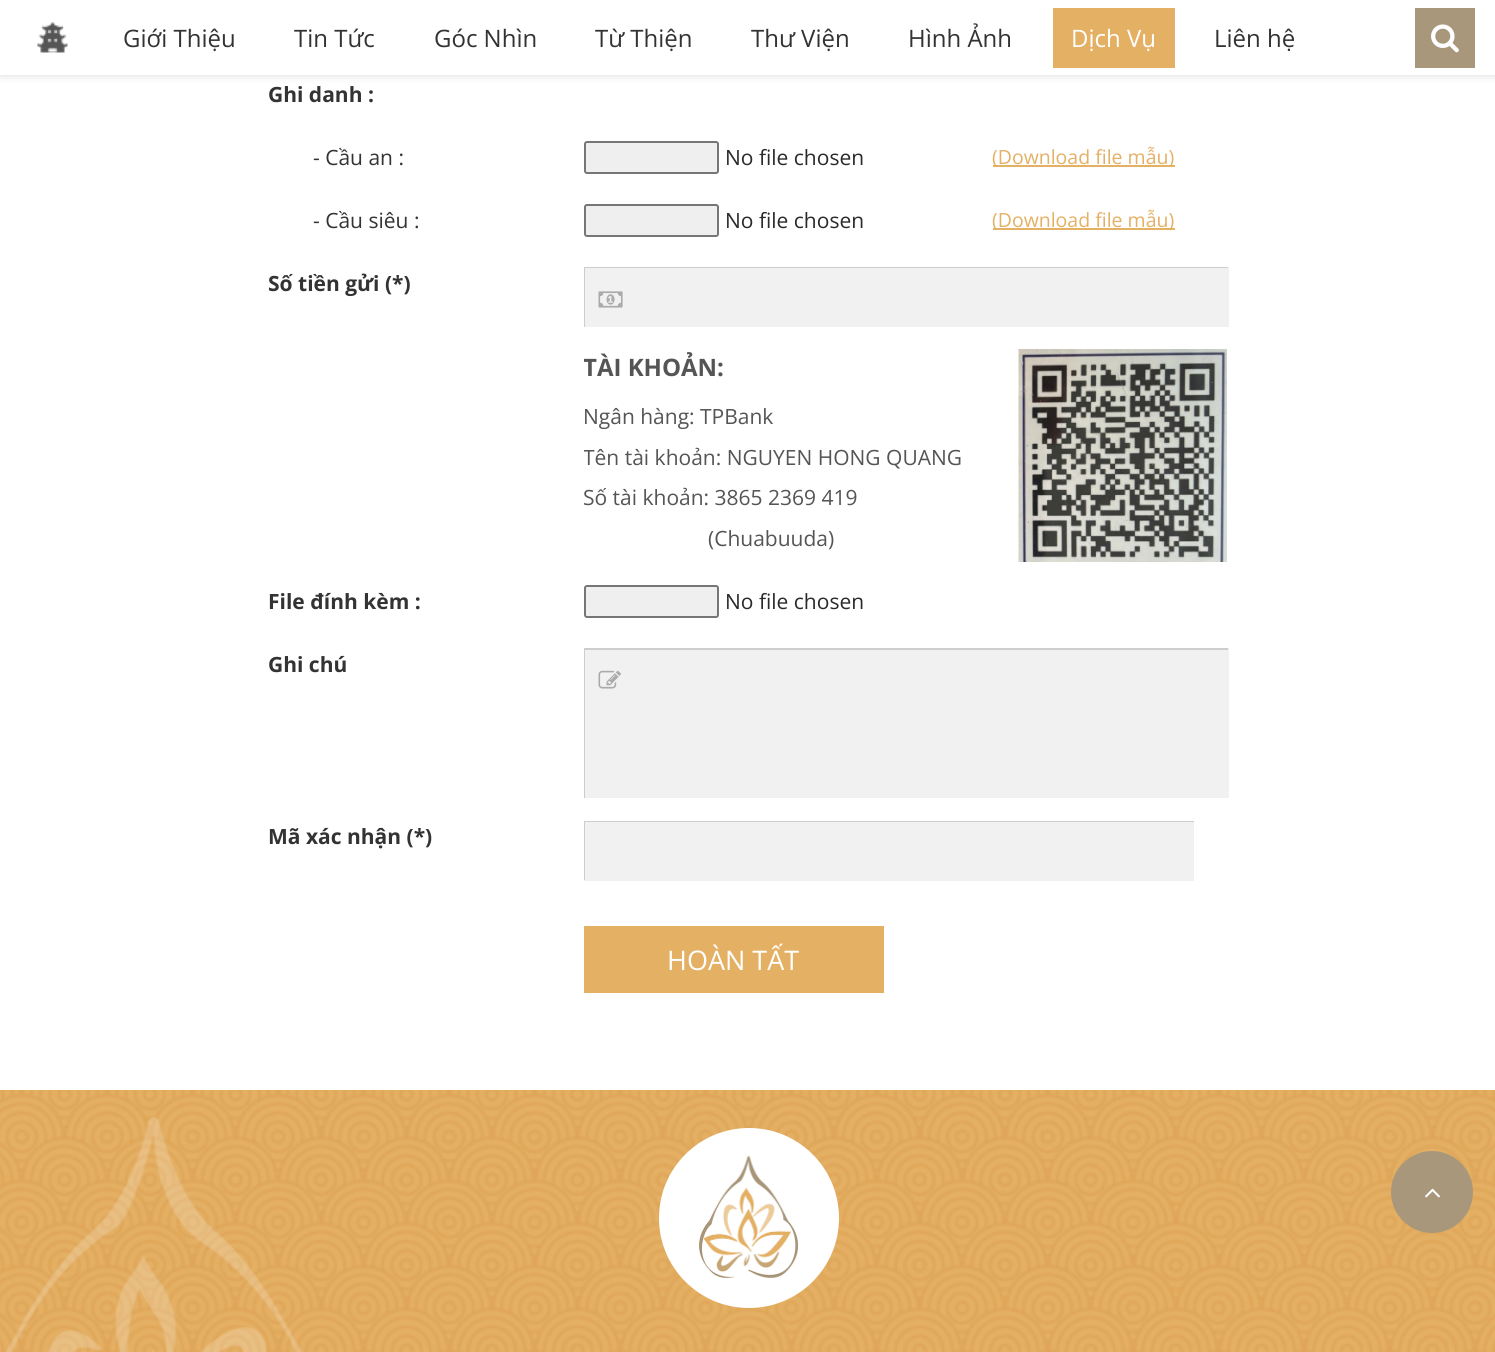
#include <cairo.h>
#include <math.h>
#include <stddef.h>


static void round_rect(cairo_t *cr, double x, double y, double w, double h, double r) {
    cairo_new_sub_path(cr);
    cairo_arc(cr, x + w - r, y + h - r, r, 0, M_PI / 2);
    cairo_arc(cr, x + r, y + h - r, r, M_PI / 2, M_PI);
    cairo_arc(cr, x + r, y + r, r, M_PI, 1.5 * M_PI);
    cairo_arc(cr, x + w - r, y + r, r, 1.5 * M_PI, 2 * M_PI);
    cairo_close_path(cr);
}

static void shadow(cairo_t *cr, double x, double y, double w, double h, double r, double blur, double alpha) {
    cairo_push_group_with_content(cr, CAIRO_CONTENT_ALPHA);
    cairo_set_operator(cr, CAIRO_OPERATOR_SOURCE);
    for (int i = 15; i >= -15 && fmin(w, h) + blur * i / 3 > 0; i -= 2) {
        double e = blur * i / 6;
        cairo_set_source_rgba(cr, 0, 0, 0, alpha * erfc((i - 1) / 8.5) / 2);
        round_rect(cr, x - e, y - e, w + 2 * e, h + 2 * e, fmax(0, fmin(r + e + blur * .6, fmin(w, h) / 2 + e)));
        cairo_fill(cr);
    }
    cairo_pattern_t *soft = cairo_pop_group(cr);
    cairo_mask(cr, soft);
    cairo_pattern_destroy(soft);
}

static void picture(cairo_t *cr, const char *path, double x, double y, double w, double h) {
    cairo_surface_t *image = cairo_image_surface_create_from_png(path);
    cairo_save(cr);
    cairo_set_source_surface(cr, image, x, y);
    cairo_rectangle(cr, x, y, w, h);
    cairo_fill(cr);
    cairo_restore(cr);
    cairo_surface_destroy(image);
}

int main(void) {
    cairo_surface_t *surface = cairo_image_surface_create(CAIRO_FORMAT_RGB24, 1495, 1352);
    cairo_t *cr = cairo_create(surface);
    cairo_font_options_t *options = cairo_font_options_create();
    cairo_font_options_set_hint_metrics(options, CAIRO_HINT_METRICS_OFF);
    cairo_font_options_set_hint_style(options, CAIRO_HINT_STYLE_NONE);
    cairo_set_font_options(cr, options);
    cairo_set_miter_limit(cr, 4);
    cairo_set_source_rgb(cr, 1, 1, 1);
    cairo_paint(cr);
    cairo_set_source_rgb(cr, 0, 0, 0);
    shadow(cr, 0, 0, 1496, 75, 0, 4.5, 0.15);
    cairo_set_source_rgb(cr, 1, 1, 1);
    cairo_rectangle(cr, 0, 0, 1495, 75);
    cairo_fill(cr);
    picture(cr, "img1.png", 37, 22, 31, 31);
    cairo_select_font_face(cr, "Open Sans", CAIRO_FONT_SLANT_NORMAL, CAIRO_FONT_WEIGHT_NORMAL);
    cairo_set_font_size(cr, 24);
    cairo_set_source_rgb(cr, 0.2, 0.2, 0.2);
    cairo_move_to(cr, 123, 47);
    cairo_show_text(cr, "Giới Thiệu");
    cairo_move_to(cr, 294, 47);
    cairo_show_text(cr, "Tin Tức");
    cairo_move_to(cr, 434, 47);
    cairo_show_text(cr, "Góc Nhìn");
    cairo_move_to(cr, 595, 47);
    cairo_show_text(cr, "Từ Thiện");
    cairo_move_to(cr, 751, 47);
    cairo_show_text(cr, "Thư Viện");
    cairo_move_to(cr, 908, 47);
    cairo_show_text(cr, "Hình Ảnh");
    cairo_set_source_rgb(cr, 0.894, 0.69, 0.392);
    cairo_rectangle(cr, 1053, 8, 122, 60);
    cairo_fill(cr);
    cairo_set_source_rgb(cr, 1, 1, 1);
    cairo_move_to(cr, 1071, 47);
    cairo_show_text(cr, "Dịch Vụ");
    cairo_set_source_rgb(cr, 0.2, 0.2, 0.2);
    cairo_move_to(cr, 1214, 47);
    cairo_show_text(cr, "Liên hệ");
    cairo_set_source_rgb(cr, 0.663, 0.592, 0.482);
    cairo_rectangle(cr, 1415, 8, 60, 60);
    cairo_fill(cr);
    picture(cr, "img2.png", 1431, 24, 28, 29);
    cairo_select_font_face(cr, "Open Sans", CAIRO_FONT_SLANT_NORMAL, CAIRO_FONT_WEIGHT_BOLD);
    cairo_set_font_size(cr, 21);
    cairo_set_source_rgb(cr, 0.2, 0.2, 0.2);
    cairo_move_to(cr, 268, 102);
    cairo_show_text(cr, "Ghi danh :");
    cairo_select_font_face(cr, "Open Sans", CAIRO_FONT_SLANT_NORMAL, CAIRO_FONT_WEIGHT_NORMAL);
    cairo_move_to(cr, 313, 165);
    cairo_show_text(cr, "- Cầu an :");
    cairo_set_source_rgb(cr, 0.937, 0.937, 0.937);
    round_rect(cr, 585, 142, 133, 31, 2);
    cairo_fill_preserve(cr);
    cairo_set_source_rgb(cr, 0.463, 0.463, 0.463);
    cairo_stroke(cr);
    cairo_set_source_rgb(cr, 0.165, 0.165, 0.165);
    cairo_move_to(cr, 725, 165);
    cairo_show_text(cr, "No file chosen");
    cairo_set_source_rgb(cr, 0.894, 0.69, 0.392);
    cairo_rectangle(cr, 993, 165, 182, 2);
    cairo_fill(cr);
    cairo_set_font_size(cr, 19.5);
    cairo_move_to(cr, 992, 164);
    cairo_show_text(cr, "(Download file mẫu)");
    cairo_set_font_size(cr, 21);
    cairo_set_source_rgb(cr, 0.2, 0.2, 0.2);
    cairo_move_to(cr, 313, 228);
    cairo_show_text(cr, "- Cầu siêu :");
    cairo_set_source_rgb(cr, 0.937, 0.937, 0.937);
    round_rect(cr, 585, 205, 133, 31, 2);
    cairo_fill_preserve(cr);
    cairo_set_source_rgb(cr, 0.463, 0.463, 0.463);
    cairo_stroke(cr);
    cairo_set_source_rgb(cr, 0.165, 0.165, 0.165);
    cairo_move_to(cr, 725, 228);
    cairo_show_text(cr, "No file chosen");
    cairo_set_source_rgb(cr, 0.894, 0.69, 0.392);
    cairo_rectangle(cr, 993, 228, 182, 2);
    cairo_fill(cr);
    cairo_set_font_size(cr, 19.5);
    cairo_move_to(cr, 992, 227);
    cairo_show_text(cr, "(Download file mẫu)");
    cairo_select_font_face(cr, "Open Sans", CAIRO_FONT_SLANT_NORMAL, CAIRO_FONT_WEIGHT_BOLD);
    cairo_set_font_size(cr, 21);
    cairo_set_source_rgb(cr, 0.2, 0.2, 0.2);
    cairo_move_to(cr, 268, 291);
    cairo_show_text(cr, "Số tiền gửi (*)");
    cairo_set_source_rgb(cr, 0.945, 0.945, 0.945);
    cairo_rectangle(cr, 584, 267, 645, 60);
    cairo_fill(cr);
    cairo_set_source_rgb(cr, 0.804, 0.804, 0.804);
    cairo_new_path(cr);
    cairo_move_to(cr, 584, 267);
    cairo_line_to(cr, 1228, 267);
    cairo_line_to(cr, 1228, 268);
    cairo_line_to(cr, 585, 268);
    cairo_close_path(cr);
    cairo_fill(cr);
    cairo_set_source_rgba(cr, 0, 0, 0, 0.15);
    cairo_new_path(cr);
    cairo_move_to(cr, 584, 327);
    cairo_line_to(cr, 584, 267);
    cairo_line_to(cr, 585, 268);
    cairo_line_to(cr, 585, 327);
    cairo_close_path(cr);
    cairo_fill(cr);
    picture(cr, "img3.png", 598, 291, 25, 17);
    cairo_save(cr);
    cairo_rectangle(cr, 584, 350, 645, 213);
    cairo_clip(cr);
    cairo_set_font_size(cr, 24);
    cairo_set_source_rgb(cr, 0.333, 0.333, 0.333);
    cairo_move_to(cr, 583, 376);
    cairo_show_text(cr, "TÀI KHOẢN:");
    cairo_restore(cr);
    picture(cr, "img4.png", 1018, 349, 209, 213);
    cairo_select_font_face(cr, "Open Sans", CAIRO_FONT_SLANT_NORMAL, CAIRO_FONT_WEIGHT_NORMAL);
    cairo_set_source_rgb(cr, 0.333, 0.333, 0.333);
    cairo_move_to(cr, 583, 424);
    cairo_show_text(cr, "Ngân hàng: TPBank");
    cairo_save(cr);
    cairo_rectangle(cr, 584, 350, 645, 213);
    cairo_clip(cr);
    cairo_move_to(cr, 583, 465);
    cairo_show_text(cr, "Tên tài khoản: NGUYEN HONG QUANG");
    cairo_restore(cr);
    cairo_move_to(cr, 583, 505);
    cairo_show_text(cr, "Số tài khoản: 3865 2369 419");
    cairo_move_to(cr, 708, 546);
    cairo_show_text(cr, "(Chuabuuda)");
    cairo_select_font_face(cr, "Open Sans", CAIRO_FONT_SLANT_NORMAL, CAIRO_FONT_WEIGHT_BOLD);
    cairo_set_source_rgb(cr, 0.2, 0.2, 0.2);
    cairo_move_to(cr, 268, 609);
    cairo_show_text(cr, "File đính kèm :");
    cairo_set_source_rgb(cr, 0.937, 0.937, 0.937);
    round_rect(cr, 585, 586, 133, 31, 2);
    cairo_fill_preserve(cr);
    cairo_set_source_rgb(cr, 0.463, 0.463, 0.463);
    cairo_stroke(cr);
    cairo_select_font_face(cr, "Open Sans", CAIRO_FONT_SLANT_NORMAL, CAIRO_FONT_WEIGHT_NORMAL);
    cairo_set_source_rgb(cr, 0.165, 0.165, 0.165);
    cairo_move_to(cr, 725, 609);
    cairo_show_text(cr, "No file chosen");
    cairo_select_font_face(cr, "Open Sans", CAIRO_FONT_SLANT_NORMAL, CAIRO_FONT_WEIGHT_BOLD);
    cairo_set_source_rgb(cr, 0.2, 0.2, 0.2);
    cairo_move_to(cr, 268, 672);
    cairo_show_text(cr, "Ghi chú");
    cairo_set_source_rgb(cr, 0.945, 0.945, 0.945);
    cairo_rectangle(cr, 584, 648, 645, 150);
    cairo_fill(cr);
    cairo_set_source_rgb(cr, 0.804, 0.804, 0.804);
    cairo_new_path(cr);
    cairo_move_to(cr, 584, 648);
    cairo_line_to(cr, 1228, 648);
    cairo_line_to(cr, 1228, 650);
    cairo_line_to(cr, 585, 650);
    cairo_close_path(cr);
    cairo_fill(cr);
    cairo_set_source_rgba(cr, 0, 0, 0, 0.15);
    cairo_new_path(cr);
    cairo_move_to(cr, 584, 798);
    cairo_line_to(cr, 584, 648);
    cairo_line_to(cr, 585, 650);
    cairo_line_to(cr, 585, 798);
    cairo_close_path(cr);
    cairo_fill(cr);
    picture(cr, "img5.png", 598, 670, 23, 19);
    cairo_set_source_rgb(cr, 0.2, 0.2, 0.2);
    cairo_move_to(cr, 268, 844);
    cairo_show_text(cr, "Mã xác nhận (*)");
    cairo_set_source_rgb(cr, 0.945, 0.945, 0.945);
    cairo_rectangle(cr, 584, 821, 610, 60);
    cairo_fill(cr);
    cairo_save(cr);
    cairo_rectangle(cr, 584, 821, 645, 60);
    cairo_clip(cr);
    cairo_set_source_rgb(cr, 0.804, 0.804, 0.804);
    cairo_new_path(cr);
    cairo_move_to(cr, 584, 820);
    cairo_line_to(cr, 1194, 820);
    cairo_line_to(cr, 1194, 822);
    cairo_line_to(cr, 585, 822);
    cairo_close_path(cr);
    cairo_fill(cr);
    cairo_restore(cr);
    cairo_set_source_rgba(cr, 0, 0, 0, 0.15);
    cairo_new_path(cr);
    cairo_move_to(cr, 584, 880);
    cairo_line_to(cr, 584, 820);
    cairo_line_to(cr, 585, 822);
    cairo_line_to(cr, 585, 880);
    cairo_close_path(cr);
    cairo_fill(cr);
    cairo_set_source_rgb(cr, 0.894, 0.69, 0.392);
    cairo_rectangle(cr, 584, 926, 300, 67);
    cairo_fill(cr);
    cairo_select_font_face(cr, "Open Sans", CAIRO_FONT_SLANT_NORMAL, CAIRO_FONT_WEIGHT_NORMAL);
    cairo_set_font_size(cr, 27);
    cairo_set_source_rgb(cr, 1, 1, 1);
    cairo_move_to(cr, 667, 970);
    cairo_show_text(cr, "HOÀN TẤT");
    picture(cr, "img6.png", 0, 1090, 1495, 262);
    cairo_arc(cr, 749, 1218, 90, 0, 2 * M_PI);
    cairo_fill(cr);
    picture(cr, "img7.png", 699, 1156, 99, 122);
    cairo_set_source_rgb(cr, 0.663, 0.592, 0.482);
    cairo_arc(cr, 1432, 1192, 41, 0, 2 * M_PI);
    cairo_fill(cr);
    picture(cr, "img8.png", 1425, 1188, 15, 10);
    cairo_surface_write_to_png(surface, "page.png");
    cairo_font_options_destroy(options);
    cairo_destroy(cr);
    cairo_surface_destroy(surface);
    return 0;
}
